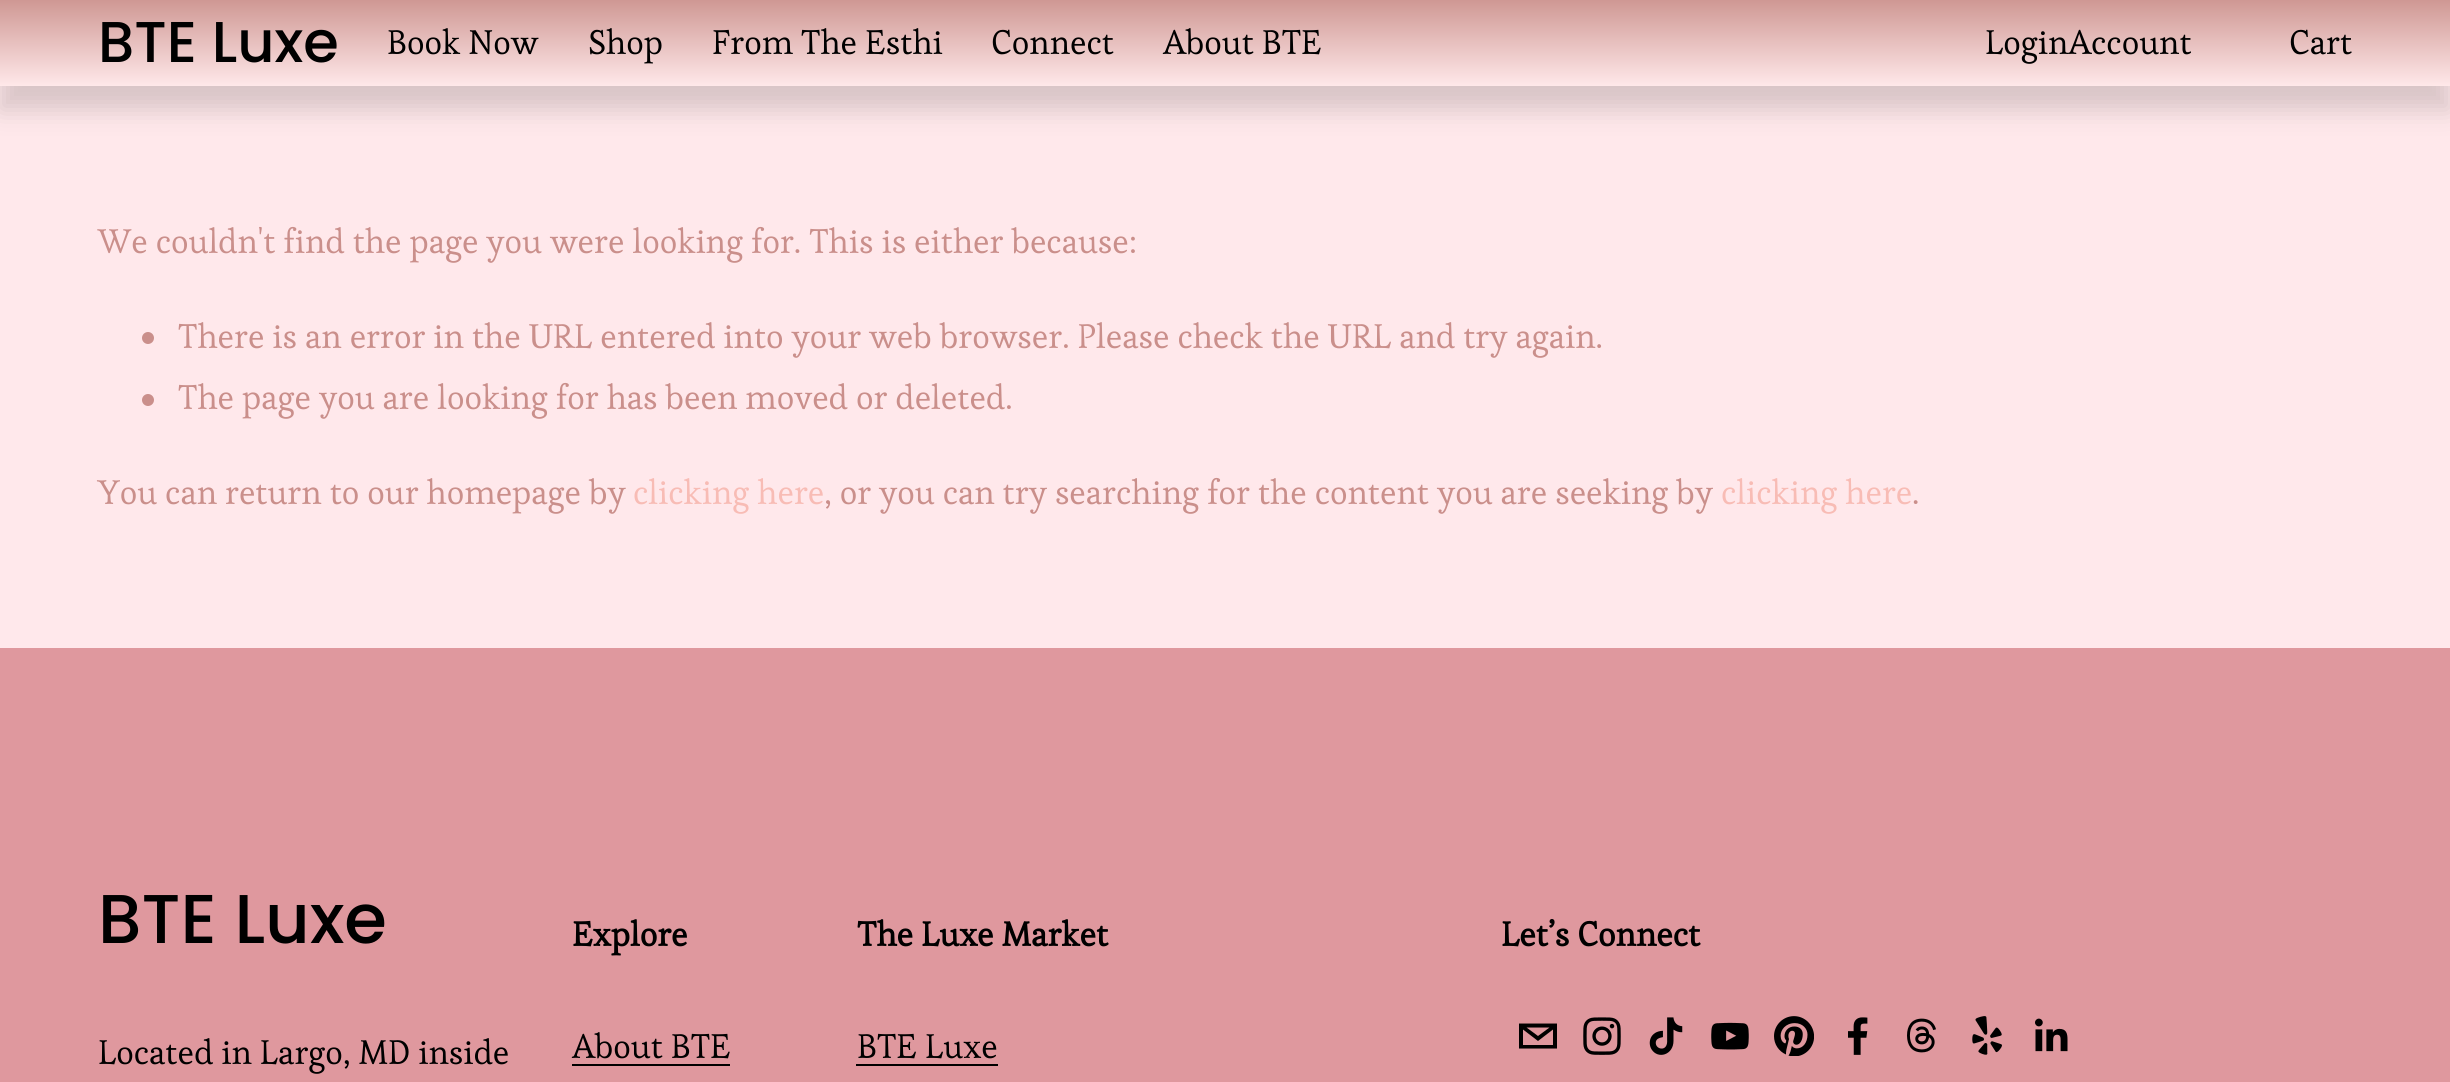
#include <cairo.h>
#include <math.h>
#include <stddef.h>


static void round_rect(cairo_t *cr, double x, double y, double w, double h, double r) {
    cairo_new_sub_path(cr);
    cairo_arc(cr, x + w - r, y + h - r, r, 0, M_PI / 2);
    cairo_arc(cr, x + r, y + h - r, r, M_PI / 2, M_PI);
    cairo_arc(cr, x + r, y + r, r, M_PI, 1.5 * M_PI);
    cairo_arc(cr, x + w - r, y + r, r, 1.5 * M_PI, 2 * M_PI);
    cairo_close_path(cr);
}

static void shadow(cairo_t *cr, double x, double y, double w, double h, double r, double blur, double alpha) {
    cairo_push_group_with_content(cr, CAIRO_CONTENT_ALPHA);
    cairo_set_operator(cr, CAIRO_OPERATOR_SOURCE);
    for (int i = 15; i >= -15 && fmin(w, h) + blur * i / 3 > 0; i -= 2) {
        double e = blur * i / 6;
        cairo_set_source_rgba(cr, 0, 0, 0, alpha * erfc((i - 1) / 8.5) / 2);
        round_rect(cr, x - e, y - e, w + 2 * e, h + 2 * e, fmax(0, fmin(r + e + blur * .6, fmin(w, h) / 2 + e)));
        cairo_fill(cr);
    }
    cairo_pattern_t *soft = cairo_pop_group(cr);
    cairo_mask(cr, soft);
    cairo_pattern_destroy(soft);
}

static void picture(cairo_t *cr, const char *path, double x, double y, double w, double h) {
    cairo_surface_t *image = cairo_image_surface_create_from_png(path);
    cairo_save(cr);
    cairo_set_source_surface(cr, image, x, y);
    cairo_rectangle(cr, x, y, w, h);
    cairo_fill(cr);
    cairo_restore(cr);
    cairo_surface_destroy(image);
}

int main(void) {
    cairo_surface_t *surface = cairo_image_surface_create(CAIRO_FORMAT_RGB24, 2450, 1082);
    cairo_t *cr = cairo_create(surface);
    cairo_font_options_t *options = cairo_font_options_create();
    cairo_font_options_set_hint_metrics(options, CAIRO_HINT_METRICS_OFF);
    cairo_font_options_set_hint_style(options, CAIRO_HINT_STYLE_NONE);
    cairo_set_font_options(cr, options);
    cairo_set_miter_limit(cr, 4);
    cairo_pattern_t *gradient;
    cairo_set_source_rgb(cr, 1, 0.91, 0.918);
    cairo_paint(cr);
    cairo_set_source_rgb(cr, 0.851, 0.773, 0.78);
    shadow(cr, 0, 24, 2450, 86, 0, 12, 1);
    gradient = cairo_pattern_create_linear(1225, 0, 1225, 86);
    cairo_pattern_add_color_stop_rgba(gradient, 0, 0.812, 0.596, 0.58, 1);
    cairo_pattern_add_color_stop_rgba(gradient, 1, 1, 0.91, 0.914, 1);
    cairo_set_source(cr, gradient);
    cairo_pattern_destroy(gradient);
    cairo_rectangle(cr, 0, 0, 2450, 86);
    cairo_fill(cr);
    cairo_select_font_face(cr, "Poppins Medium", CAIRO_FONT_SLANT_NORMAL, CAIRO_FONT_WEIGHT_NORMAL);
    cairo_set_font_size(cr, 57.5);
    cairo_set_source_rgb(cr, 0, 0, 0);
    cairo_move_to(cr, 98, 62);
    cairo_show_text(cr, "BTE Luxe");
    cairo_select_font_face(cr, "Esteban", CAIRO_FONT_SLANT_NORMAL, CAIRO_FONT_WEIGHT_NORMAL);
    cairo_set_font_size(cr, 33.9);
    cairo_move_to(cr, 387, 54);
    cairo_show_text(cr, "Book Now");
    cairo_move_to(cr, 588, 54);
    cairo_show_text(cr, "Shop");
    cairo_move_to(cr, 712, 54);
    cairo_show_text(cr, "From The Esthi");
    cairo_move_to(cr, 991, 54);
    cairo_show_text(cr, "Connect");
    cairo_move_to(cr, 1163, 54);
    cairo_show_text(cr, "About BTE");
    cairo_move_to(cr, 1985, 54);
    cairo_show_text(cr, "LoginAccount");
    cairo_move_to(cr, 2289, 54);
    cairo_show_text(cr, "Cart");
    cairo_set_source_rgb(cr, 0.792, 0.561, 0.545);
    cairo_move_to(cr, 98, 253);
    cairo_show_text(cr, "We couldn't find the page you were looking for. This is either because:");
    cairo_new_path(cr);
    cairo_arc(cr, 148, 338, 6, 0, 2 * M_PI);
    cairo_fill(cr);
    cairo_move_to(cr, 178, 348);
    cairo_show_text(cr, "There is an error in the URL entered into your web browser. Please check the URL and try again.");
    cairo_new_path(cr);
    cairo_arc(cr, 148, 400, 6, 0, 2 * M_PI);
    cairo_fill(cr);
    cairo_move_to(cr, 178, 409);
    cairo_show_text(cr, "The page you are looking for has been moved or deleted.");
    cairo_move_to(cr, 98, 504);
    cairo_show_text(cr, "You can return to our homepage by");
    cairo_set_source_rgb(cr, 0.969, 0.737, 0.71);
    cairo_move_to(cr, 633, 504);
    cairo_show_text(cr, "clicking here");
    cairo_set_source_rgb(cr, 0.792, 0.561, 0.545);
    cairo_move_to(cr, 824, 504);
    cairo_show_text(cr, ", or you can try searching for the content you are seeking by");
    cairo_set_source_rgb(cr, 0.969, 0.737, 0.71);
    cairo_move_to(cr, 1721, 504);
    cairo_show_text(cr, "clicking here");
    cairo_set_source_rgb(cr, 0.792, 0.561, 0.545);
    cairo_move_to(cr, 1912, 504);
    cairo_show_text(cr, ".");
    cairo_set_source_rgb(cr, 0.875, 0.596, 0.62);
    cairo_rectangle(cr, 0, 648, 2450, 434);
    cairo_fill(cr);
    cairo_select_font_face(cr, "Poppins Medium", CAIRO_FONT_SLANT_NORMAL, CAIRO_FONT_WEIGHT_NORMAL);
    cairo_set_font_size(cr, 69);
    cairo_set_source_rgb(cr, 0, 0, 0);
    cairo_move_to(cr, 98, 943);
    cairo_show_text(cr, "BTE Luxe");
    cairo_select_font_face(cr, "Esteban", CAIRO_FONT_SLANT_NORMAL, CAIRO_FONT_WEIGHT_NORMAL);
    cairo_set_font_size(cr, 33.9);
    cairo_move_to(cr, 98, 1064);
    cairo_show_text(cr, "Located in Largo, MD inside");
    cairo_select_font_face(cr, "Esteban", CAIRO_FONT_SLANT_NORMAL, CAIRO_FONT_WEIGHT_BOLD);
    cairo_move_to(cr, 572, 946);
    cairo_show_text(cr, "Explore");
    cairo_move_to(cr, 857, 946);
    cairo_show_text(cr, "The Luxe Market");
    cairo_move_to(cr, 1501, 946);
    cairo_show_text(cr, "Let’s Connect");
    cairo_select_font_face(cr, "Esteban", CAIRO_FONT_SLANT_NORMAL, CAIRO_FONT_WEIGHT_NORMAL);
    cairo_move_to(cr, 572, 1058);
    cairo_show_text(cr, "About BTE");
    cairo_rectangle(cr, 572, 1064, 158, 2);
    cairo_fill(cr);
    cairo_move_to(cr, 857, 1058);
    cairo_show_text(cr, "BTE Luxe");
    cairo_rectangle(cr, 856, 1064, 142, 2);
    cairo_fill(cr);
    cairo_new_path(cr);
    cairo_move_to(cr, 1519, 1023.5);
    cairo_line_to(cr, 1519, 1048.5);
    cairo_line_to(cr, 1557, 1048.5);
    cairo_line_to(cr, 1557, 1023.5);
    cairo_close_path(cr);
    cairo_move_to(cr, 1549.5, 1027.5);
    cairo_line_to(cr, 1538, 1036);
    cairo_line_to(cr, 1526.5, 1027.5);
    cairo_close_path(cr);
    cairo_move_to(cr, 1523, 1045);
    cairo_line_to(cr, 1523, 1029.5);
    cairo_line_to(cr, 1538, 1041);
    cairo_line_to(cr, 1553, 1029.5);
    cairo_line_to(cr, 1553, 1045);
    cairo_close_path(cr);
    cairo_fill(cr);
    picture(cr, "img1.png", 1583, 1017, 38, 38);
    picture(cr, "img2.png", 1649, 1017, 34, 38);
    picture(cr, "img3.png", 1711, 1022, 38, 28);
    picture(cr, "img4.png", 1774, 1016, 40, 40);
    picture(cr, "img5.png", 1848, 1017, 20, 38);
    picture(cr, "img6.png", 1907, 1018, 29, 35);
    picture(cr, "img7.png", 1972, 1016, 30, 39);
    picture(cr, "img8.png", 2035, 1018, 33, 34);
    cairo_surface_write_to_png(surface, "page.png");
    cairo_font_options_destroy(options);
    cairo_destroy(cr);
    cairo_surface_destroy(surface);
    return 0;
}
